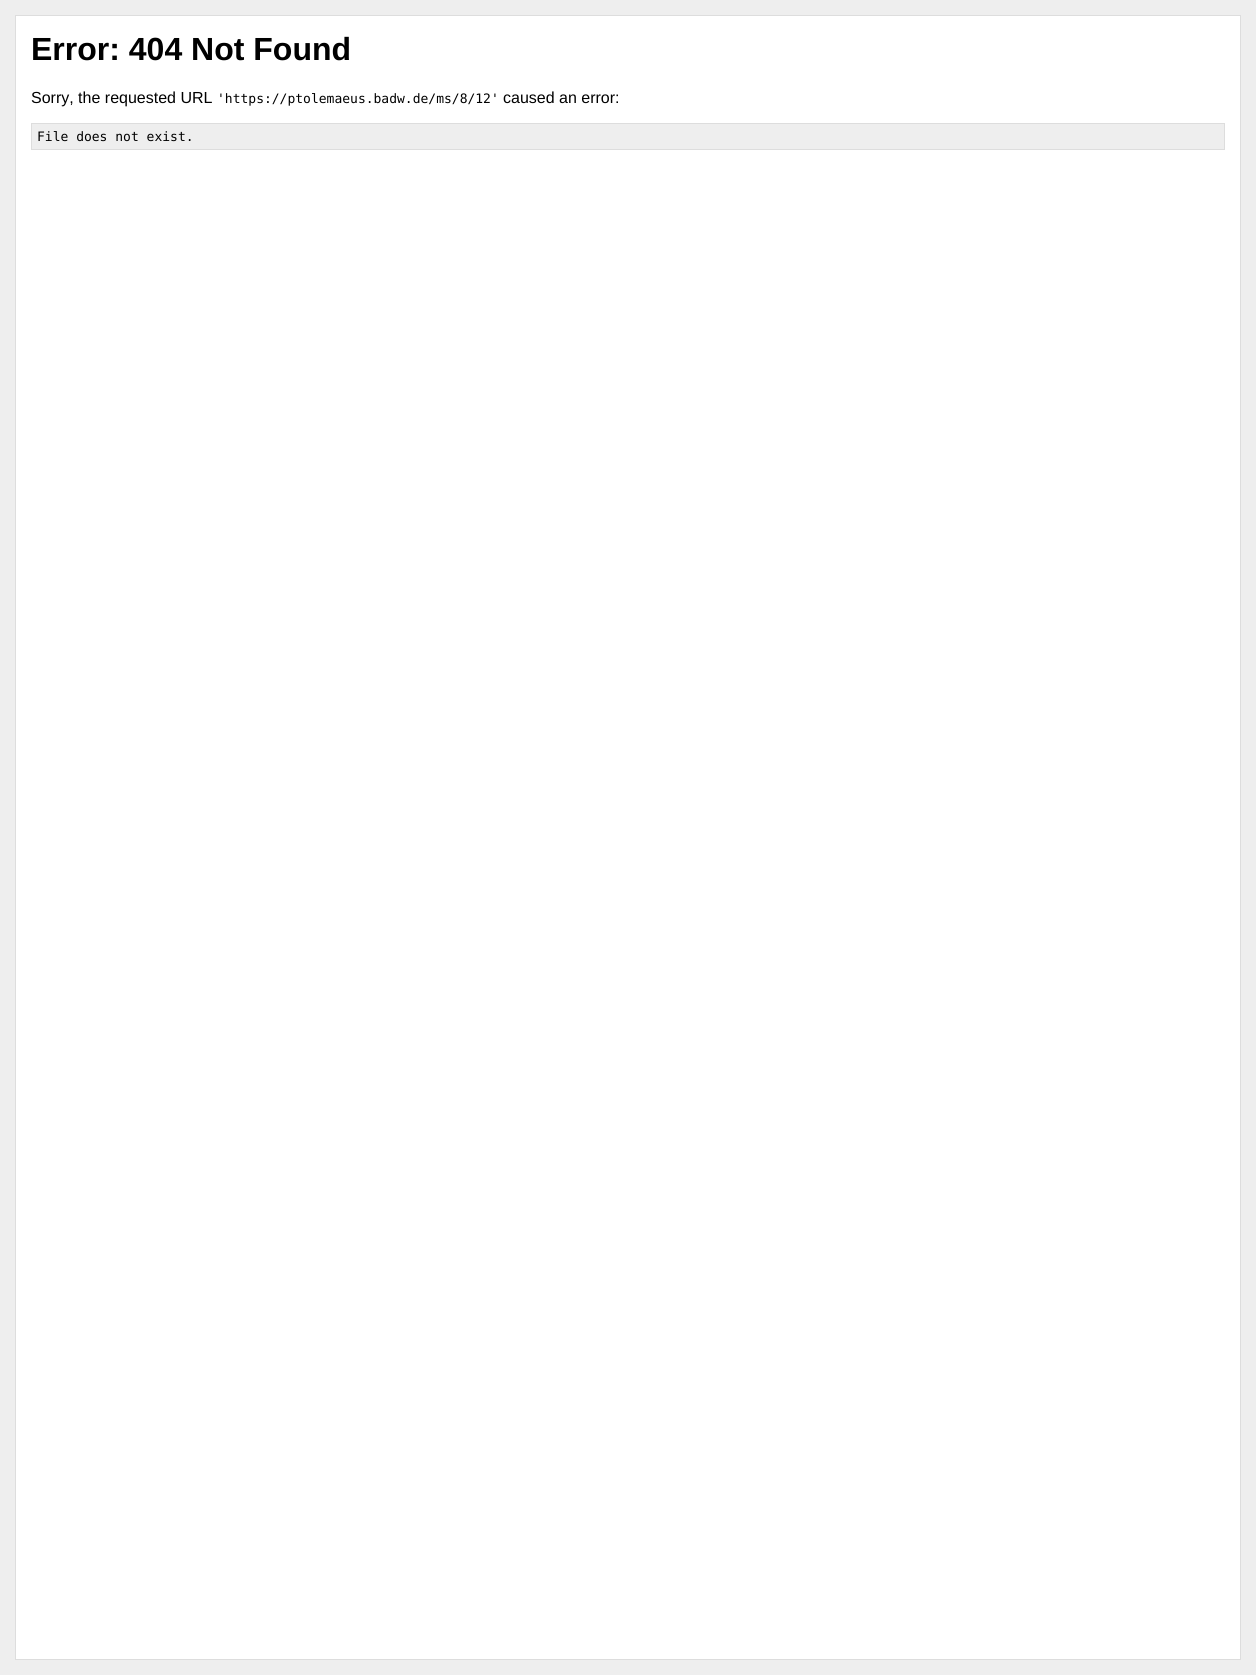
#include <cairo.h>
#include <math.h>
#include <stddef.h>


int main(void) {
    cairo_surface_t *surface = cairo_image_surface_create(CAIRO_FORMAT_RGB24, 1256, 1675);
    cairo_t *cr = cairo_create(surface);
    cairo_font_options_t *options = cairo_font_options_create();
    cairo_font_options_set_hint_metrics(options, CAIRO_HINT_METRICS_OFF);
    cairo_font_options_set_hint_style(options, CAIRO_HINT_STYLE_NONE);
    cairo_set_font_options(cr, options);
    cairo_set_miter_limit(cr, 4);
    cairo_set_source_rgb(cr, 0.933, 0.933, 0.933);
    cairo_paint(cr);
    cairo_set_source_rgb(cr, 1, 1, 1);
    cairo_rectangle(cr, 15.5, 15.5, 1225, 1644);
    cairo_fill_preserve(cr);
    cairo_set_source_rgb(cr, 0.867, 0.867, 0.867);
    cairo_set_line_width(cr, 1);
    cairo_stroke(cr);
    cairo_select_font_face(cr, "Liberation Sans", CAIRO_FONT_SLANT_NORMAL, CAIRO_FONT_WEIGHT_BOLD);
    cairo_set_font_size(cr, 32);
    cairo_set_source_rgb(cr, 0, 0, 0);
    cairo_move_to(cr, 31, 60);
    cairo_show_text(cr, "Error: 404 Not Found");
    cairo_select_font_face(cr, "Liberation Sans", CAIRO_FONT_SLANT_NORMAL, CAIRO_FONT_WEIGHT_NORMAL);
    cairo_set_font_size(cr, 16);
    cairo_move_to(cr, 31, 103);
    cairo_show_text(cr, "Sorry, the requested URL");
    cairo_select_font_face(cr, "DejaVu Sans Mono", CAIRO_FONT_SLANT_NORMAL, CAIRO_FONT_WEIGHT_NORMAL);
    cairo_set_font_size(cr, 13);
    cairo_move_to(cr, 217, 103);
    cairo_show_text(cr, "'https://ptolemaeus.badw.de/ms/8/12'");
    cairo_select_font_face(cr, "Liberation Sans", CAIRO_FONT_SLANT_NORMAL, CAIRO_FONT_WEIGHT_NORMAL);
    cairo_set_font_size(cr, 16);
    cairo_move_to(cr, 503, 103);
    cairo_show_text(cr, "caused an error:");
    cairo_set_source_rgb(cr, 0.933, 0.933, 0.933);
    cairo_rectangle(cr, 31.5, 123.5, 1193, 26);
    cairo_fill_preserve(cr);
    cairo_set_source_rgb(cr, 0.867, 0.867, 0.867);
    cairo_stroke(cr);
    cairo_select_font_face(cr, "DejaVu Sans Mono", CAIRO_FONT_SLANT_NORMAL, CAIRO_FONT_WEIGHT_NORMAL);
    cairo_set_font_size(cr, 13);
    cairo_set_source_rgb(cr, 0, 0, 0);
    cairo_move_to(cr, 37, 141);
    cairo_show_text(cr, "File does not exist.");
    cairo_surface_write_to_png(surface, "page.png");
    cairo_font_options_destroy(options);
    cairo_destroy(cr);
    cairo_surface_destroy(surface);
    return 0;
}
